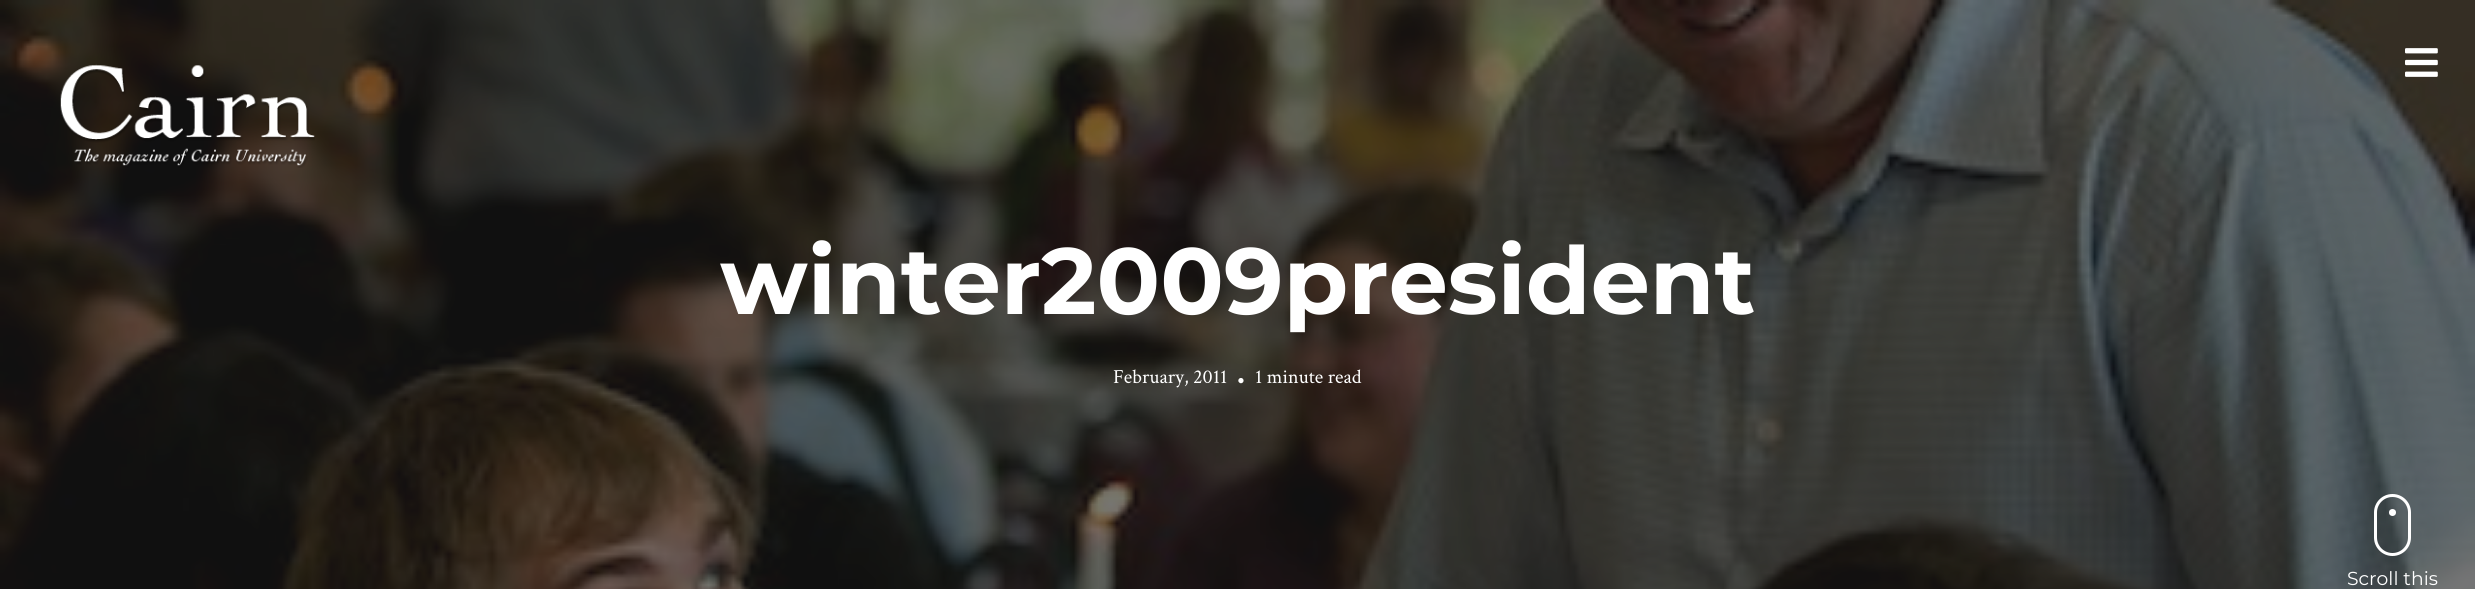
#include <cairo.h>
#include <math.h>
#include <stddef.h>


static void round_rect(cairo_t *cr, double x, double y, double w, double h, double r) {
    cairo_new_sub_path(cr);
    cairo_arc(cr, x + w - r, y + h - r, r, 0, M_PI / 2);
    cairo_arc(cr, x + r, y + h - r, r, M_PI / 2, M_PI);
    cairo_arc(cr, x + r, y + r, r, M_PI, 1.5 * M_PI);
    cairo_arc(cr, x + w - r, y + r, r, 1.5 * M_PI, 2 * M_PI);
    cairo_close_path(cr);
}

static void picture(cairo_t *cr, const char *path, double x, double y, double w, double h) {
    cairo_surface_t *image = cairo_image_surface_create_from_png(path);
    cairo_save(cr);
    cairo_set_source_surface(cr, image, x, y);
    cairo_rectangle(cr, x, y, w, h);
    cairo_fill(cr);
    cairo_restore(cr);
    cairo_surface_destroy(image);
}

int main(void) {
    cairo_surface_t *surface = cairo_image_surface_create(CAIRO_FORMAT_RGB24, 2475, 589);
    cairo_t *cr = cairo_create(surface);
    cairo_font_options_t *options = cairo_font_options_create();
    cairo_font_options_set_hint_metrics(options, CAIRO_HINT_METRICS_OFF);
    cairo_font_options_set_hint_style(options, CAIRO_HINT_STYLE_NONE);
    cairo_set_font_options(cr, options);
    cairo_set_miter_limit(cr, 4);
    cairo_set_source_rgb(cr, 0.106, 0.106, 0.106);
    cairo_paint(cr);
    picture(cr, "img3.png", 0, 0, 2475, 589);
    picture(cr, "img1.png", 60, 64, 255, 104);
    picture(cr, "img2.png", 2405, 48, 33, 29);
    cairo_select_font_face(cr, "Montserrat", CAIRO_FONT_SLANT_NORMAL, CAIRO_FONT_WEIGHT_BOLD);
    cairo_set_font_size(cr, 93.75);
    cairo_set_source_rgb(cr, 1, 1, 1);
    cairo_move_to(cr, 720, 314);
    cairo_show_text(cr, "winter2009president");
    cairo_select_font_face(cr, "Crimson Text", CAIRO_FONT_SLANT_NORMAL, CAIRO_FONT_WEIGHT_NORMAL);
    cairo_set_font_size(cr, 20);
    cairo_move_to(cr, 1113, 383);
    cairo_show_text(cr, "February, 2011");
    cairo_set_font_size(cr, 25);
    cairo_move_to(cr, 1236, 387);
    cairo_show_text(cr, "•");
    cairo_set_font_size(cr, 20);
    cairo_move_to(cr, 1255, 383);
    cairo_show_text(cr, "1 minute read");
    round_rect(cr, 2375.5, 495.5, 34, 59, 17);
    cairo_set_line_width(cr, 3);
    cairo_stroke(cr);
    cairo_arc(cr, 2392.5, 512.5, 3.5, 0, 2 * M_PI);
    cairo_fill(cr);
    cairo_select_font_face(cr, "Montserrat", CAIRO_FONT_SLANT_NORMAL, CAIRO_FONT_WEIGHT_NORMAL);
    cairo_set_font_size(cr, 18.75);
    cairo_move_to(cr, 2347, 585);
    cairo_show_text(cr, "Scroll this");
    cairo_surface_write_to_png(surface, "page.png");
    cairo_font_options_destroy(options);
    cairo_destroy(cr);
    cairo_surface_destroy(surface);
    return 0;
}
